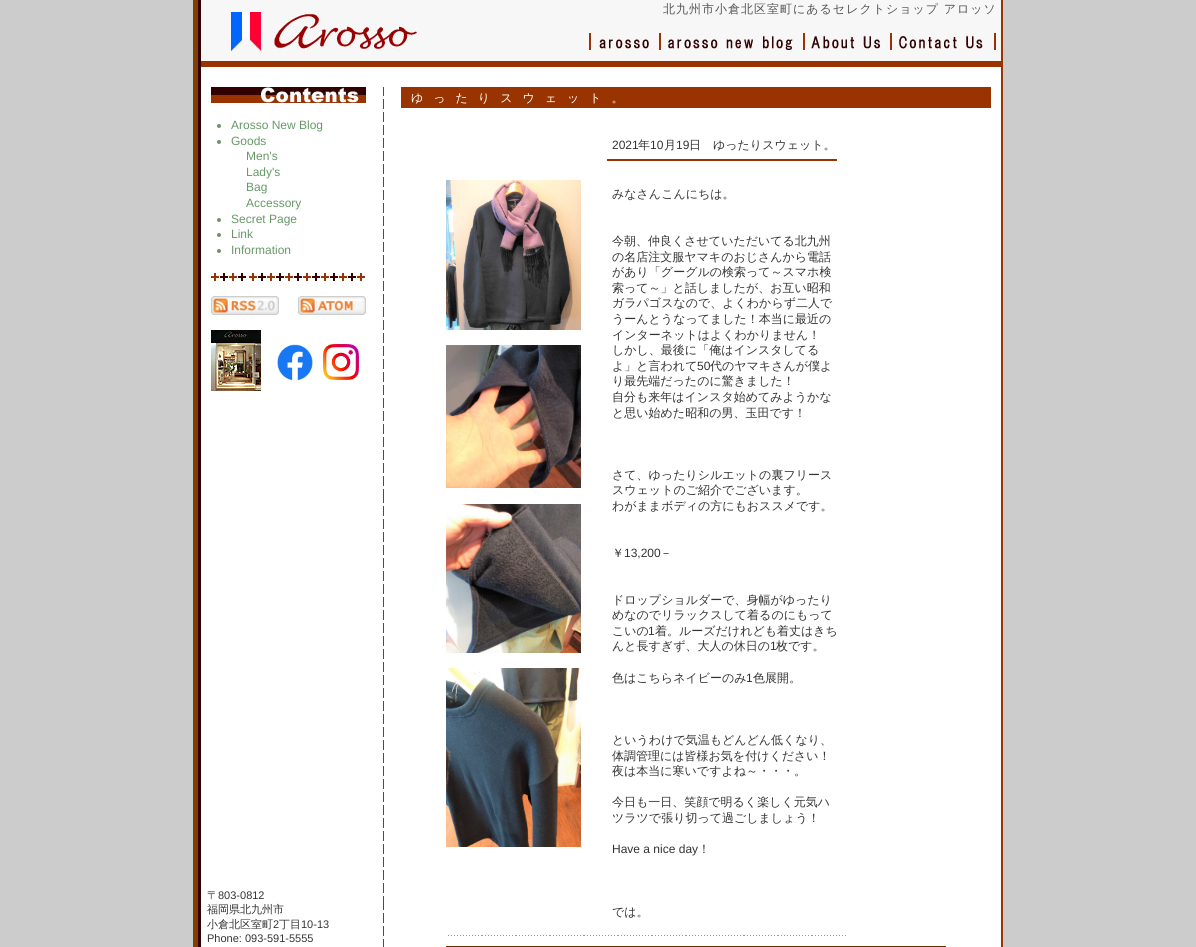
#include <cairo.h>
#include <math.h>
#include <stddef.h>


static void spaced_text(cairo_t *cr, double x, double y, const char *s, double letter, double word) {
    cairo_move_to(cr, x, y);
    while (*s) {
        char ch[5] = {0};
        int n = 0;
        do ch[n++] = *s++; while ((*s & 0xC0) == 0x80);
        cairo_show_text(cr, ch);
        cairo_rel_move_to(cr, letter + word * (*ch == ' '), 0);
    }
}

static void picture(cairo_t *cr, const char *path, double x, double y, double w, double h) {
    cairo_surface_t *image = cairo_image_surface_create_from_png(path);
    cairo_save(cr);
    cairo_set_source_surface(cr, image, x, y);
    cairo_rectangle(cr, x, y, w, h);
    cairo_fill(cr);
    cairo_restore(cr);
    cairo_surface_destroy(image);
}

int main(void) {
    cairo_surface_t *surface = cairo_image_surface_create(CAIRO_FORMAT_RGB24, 1196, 947);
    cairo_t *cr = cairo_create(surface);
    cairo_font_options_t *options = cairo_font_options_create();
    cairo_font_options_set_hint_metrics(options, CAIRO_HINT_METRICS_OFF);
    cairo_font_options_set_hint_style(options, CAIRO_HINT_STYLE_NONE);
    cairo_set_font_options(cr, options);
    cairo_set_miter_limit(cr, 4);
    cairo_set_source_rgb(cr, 0.8, 0.8, 0.8);
    cairo_paint(cr);
    picture(cr, "img1.png", 193, 0, 810, 947);
    cairo_select_font_face(cr, "WenQuanYi Zen Hei Medium", CAIRO_FONT_SLANT_NORMAL, CAIRO_FONT_WEIGHT_NORMAL);
    cairo_set_font_size(cr, 12);
    cairo_set_source_rgb(cr, 0.333, 0.333, 0.333);
    spaced_text(cr, 663, 13, "北九州市小倉北区室町にあるセレクトショップ アロッソ", 1, 0);
    picture(cr, "img2.png", 231, 12, 186, 39);
    picture(cr, "img3.png", 589, 33, 72, 17);
    picture(cr, "img4.png", 661, 33, 144, 17);
    picture(cr, "img5.png", 805, 33, 87, 17);
    picture(cr, "img6.png", 893, 33, 103, 17);
    cairo_set_source_rgb(cr, 1, 1, 1);
    cairo_rectangle(cr, 201, 67, 800, 880);
    cairo_fill(cr);
    cairo_set_source_rgb(cr, 0.6, 0.2, 0);
    cairo_rectangle(cr, 201, 61, 800, 6);
    cairo_fill(cr);
    picture(cr, "img7.png", 211, 87, 155, 16);
    cairo_set_source_rgb(cr, 0.4, 0.6, 0.4);
    cairo_arc(cr, 219, 126, 2, 0, 2 * M_PI);
    cairo_fill(cr);
    cairo_select_font_face(cr, "Liberation Sans", CAIRO_FONT_SLANT_NORMAL, CAIRO_FONT_WEIGHT_NORMAL);
    cairo_move_to(cr, 231, 129);
    cairo_show_text(cr, "Arosso New Blog");
    cairo_new_path(cr);
    cairo_arc(cr, 219, 142, 2, 0, 2 * M_PI);
    cairo_fill(cr);
    cairo_move_to(cr, 231, 145);
    cairo_show_text(cr, "Goods");
    cairo_move_to(cr, 246, 160);
    cairo_show_text(cr, "Men's");
    cairo_move_to(cr, 246, 176);
    cairo_show_text(cr, "Lady's");
    cairo_move_to(cr, 246, 191);
    cairo_show_text(cr, "Bag");
    cairo_move_to(cr, 246, 207);
    cairo_show_text(cr, "Accessory");
    cairo_new_path(cr);
    cairo_arc(cr, 219, 220, 2, 0, 2 * M_PI);
    cairo_fill(cr);
    cairo_move_to(cr, 231, 223);
    cairo_show_text(cr, "Secret Page");
    cairo_new_path(cr);
    cairo_arc(cr, 219, 235, 2, 0, 2 * M_PI);
    cairo_fill(cr);
    cairo_move_to(cr, 231, 238);
    cairo_show_text(cr, "Link");
    cairo_new_path(cr);
    cairo_arc(cr, 219, 251, 2, 0, 2 * M_PI);
    cairo_fill(cr);
    cairo_move_to(cr, 231, 254);
    cairo_show_text(cr, "Information");
    picture(cr, "img8.png", 211, 273, 155, 8);
    picture(cr, "img9.png", 211, 296, 68, 19);
    picture(cr, "img10.png", 298, 296, 68, 19);
    picture(cr, "img11.png", 211, 330, 50, 61);
    picture(cr, "img12.png", 277, 344, 36, 37);
    picture(cr, "img13.png", 323, 344, 36, 36);
    picture(cr, "img14.png", 383, 87, 1, 860);
    cairo_set_source_rgb(cr, 0.6, 0.2, 0);
    cairo_rectangle(cr, 401, 87, 590, 21);
    cairo_fill(cr);
    cairo_select_font_face(cr, "WenQuanYi Zen Hei Medium", CAIRO_FONT_SLANT_NORMAL, CAIRO_FONT_WEIGHT_NORMAL);
    cairo_set_source_rgb(cr, 1, 1, 1);
    spaced_text(cr, 411, 102, "ゆったりスウェット。", 10, 0);
    cairo_select_font_face(cr, "Liberation Sans", CAIRO_FONT_SLANT_NORMAL, CAIRO_FONT_WEIGHT_NORMAL);
    cairo_set_source_rgb(cr, 0.2, 0.2, 0.2);
    cairo_move_to(cr, 612, 149);
    cairo_show_text(cr, "2021");
    cairo_select_font_face(cr, "WenQuanYi Zen Hei Medium", CAIRO_FONT_SLANT_NORMAL, CAIRO_FONT_WEIGHT_NORMAL);
    cairo_move_to(cr, 638, 149);
    cairo_show_text(cr, "年");
    cairo_select_font_face(cr, "Liberation Sans", CAIRO_FONT_SLANT_NORMAL, CAIRO_FONT_WEIGHT_NORMAL);
    cairo_move_to(cr, 650, 149);
    cairo_show_text(cr, "10");
    cairo_select_font_face(cr, "WenQuanYi Zen Hei Medium", CAIRO_FONT_SLANT_NORMAL, CAIRO_FONT_WEIGHT_NORMAL);
    cairo_move_to(cr, 664, 149);
    cairo_show_text(cr, "月");
    cairo_select_font_face(cr, "Liberation Sans", CAIRO_FONT_SLANT_NORMAL, CAIRO_FONT_WEIGHT_NORMAL);
    cairo_move_to(cr, 676, 149);
    cairo_show_text(cr, "19");
    cairo_select_font_face(cr, "WenQuanYi Zen Hei Medium", CAIRO_FONT_SLANT_NORMAL, CAIRO_FONT_WEIGHT_NORMAL);
    cairo_move_to(cr, 689, 149);
    cairo_show_text(cr, "日　ゆったりスウェット。");
    picture(cr, "img15.png", 446, 180, 135, 150);
    picture(cr, "img16.png", 446, 345, 135, 143);
    picture(cr, "img17.png", 446, 504, 135, 149);
    picture(cr, "img18.png", 446, 668, 135, 179);
    cairo_set_source_rgb(cr, 0.6, 0.204, 0);
    cairo_rectangle(cr, 607, 159, 230, 2);
    cairo_fill(cr);
    cairo_set_source_rgb(cr, 0.2, 0.2, 0.2);
    cairo_move_to(cr, 612, 198);
    cairo_show_text(cr, "みなさんこんにちは。");
    cairo_move_to(cr, 612, 245);
    cairo_show_text(cr, "今朝、仲良くさせていただいてる北九州");
    cairo_move_to(cr, 612, 261);
    cairo_show_text(cr, "の名店注文服ヤマキのおじさんから電話");
    cairo_move_to(cr, 612, 276);
    cairo_show_text(cr, "があり「グーグルの検索って～スマホ検");
    cairo_move_to(cr, 612, 292);
    cairo_show_text(cr, "索って～」と話しましたが、お互い昭和");
    cairo_move_to(cr, 612, 307);
    cairo_show_text(cr, "ガラパゴスなので、よくわからず二人で");
    cairo_move_to(cr, 612, 323);
    cairo_show_text(cr, "うーんとうなってました！本当に最近の");
    cairo_move_to(cr, 612, 339);
    cairo_show_text(cr, "インターネットはよくわかりません！");
    cairo_move_to(cr, 612, 354);
    cairo_show_text(cr, "しかし、最後に「俺はインスタしてる");
    cairo_move_to(cr, 612, 370);
    cairo_show_text(cr, "よ」と言われて");
    cairo_select_font_face(cr, "Liberation Sans", CAIRO_FONT_SLANT_NORMAL, CAIRO_FONT_WEIGHT_NORMAL);
    cairo_move_to(cr, 697, 370);
    cairo_show_text(cr, "50");
    cairo_select_font_face(cr, "WenQuanYi Zen Hei Medium", CAIRO_FONT_SLANT_NORMAL, CAIRO_FONT_WEIGHT_NORMAL);
    cairo_move_to(cr, 710, 370);
    cairo_show_text(cr, "代のヤマキさんが僕よ");
    cairo_move_to(cr, 612, 385);
    cairo_show_text(cr, "り最先端だったのに驚きました！");
    cairo_move_to(cr, 612, 401);
    cairo_show_text(cr, "自分も来年はインスタ始めてみようかな");
    cairo_move_to(cr, 612, 417);
    cairo_show_text(cr, "と思い始めた昭和の男、玉田です！");
    cairo_move_to(cr, 612, 479);
    cairo_show_text(cr, "さて、ゆったりシルエットの裏フリース");
    cairo_move_to(cr, 612, 494);
    cairo_show_text(cr, "スウェットのご紹介でございます。");
    cairo_move_to(cr, 612, 510);
    cairo_show_text(cr, "わがままボディの方にもおススメです。");
    cairo_move_to(cr, 612, 557);
    cairo_show_text(cr, "￥");
    cairo_select_font_face(cr, "Liberation Sans", CAIRO_FONT_SLANT_NORMAL, CAIRO_FONT_WEIGHT_NORMAL);
    cairo_move_to(cr, 624, 557);
    cairo_show_text(cr, "13,200");
    cairo_select_font_face(cr, "WenQuanYi Zen Hei Medium", CAIRO_FONT_SLANT_NORMAL, CAIRO_FONT_WEIGHT_NORMAL);
    cairo_move_to(cr, 660, 557);
    cairo_show_text(cr, "－");
    cairo_move_to(cr, 612, 604);
    cairo_show_text(cr, "ドロップショルダーで、身幅がゆったり");
    cairo_move_to(cr, 612, 619);
    cairo_show_text(cr, "めなのでリラックスして着るのにもって");
    cairo_move_to(cr, 612, 635);
    cairo_show_text(cr, "こいの");
    cairo_select_font_face(cr, "Liberation Sans", CAIRO_FONT_SLANT_NORMAL, CAIRO_FONT_WEIGHT_NORMAL);
    cairo_move_to(cr, 648, 635);
    cairo_show_text(cr, "1");
    cairo_select_font_face(cr, "WenQuanYi Zen Hei Medium", CAIRO_FONT_SLANT_NORMAL, CAIRO_FONT_WEIGHT_NORMAL);
    cairo_move_to(cr, 655, 635);
    cairo_show_text(cr, "着。ルーズだけれども着丈はきち");
    cairo_move_to(cr, 612, 650);
    cairo_show_text(cr, "んと長すぎず、大人の休日の");
    cairo_select_font_face(cr, "Liberation Sans", CAIRO_FONT_SLANT_NORMAL, CAIRO_FONT_WEIGHT_NORMAL);
    cairo_move_to(cr, 770, 650);
    cairo_show_text(cr, "1");
    cairo_select_font_face(cr, "WenQuanYi Zen Hei Medium", CAIRO_FONT_SLANT_NORMAL, CAIRO_FONT_WEIGHT_NORMAL);
    cairo_move_to(cr, 776, 650);
    cairo_show_text(cr, "枚です。");
    cairo_move_to(cr, 612, 682);
    cairo_show_text(cr, "色はこちらネイビーのみ");
    cairo_select_font_face(cr, "Liberation Sans", CAIRO_FONT_SLANT_NORMAL, CAIRO_FONT_WEIGHT_NORMAL);
    cairo_move_to(cr, 746, 682);
    cairo_show_text(cr, "1");
    cairo_select_font_face(cr, "WenQuanYi Zen Hei Medium", CAIRO_FONT_SLANT_NORMAL, CAIRO_FONT_WEIGHT_NORMAL);
    cairo_move_to(cr, 753, 682);
    cairo_show_text(cr, "色展開。");
    cairo_move_to(cr, 612, 744);
    cairo_show_text(cr, "というわけで気温もどんどん低くなり、");
    cairo_move_to(cr, 612, 760);
    cairo_show_text(cr, "体調管理には皆様お気を付けください！");
    cairo_move_to(cr, 612, 775);
    cairo_show_text(cr, "夜は本当に寒いですよね～・・・。");
    cairo_move_to(cr, 612, 806);
    cairo_show_text(cr, "今日も一日、笑顔で明るく楽しく元気ハ");
    cairo_move_to(cr, 612, 822);
    cairo_show_text(cr, "ツラツで張り切って過ごしましょう！");
    cairo_select_font_face(cr, "Liberation Sans", CAIRO_FONT_SLANT_NORMAL, CAIRO_FONT_WEIGHT_NORMAL);
    cairo_move_to(cr, 612, 853);
    cairo_show_text(cr, "Have a nice day");
    cairo_select_font_face(cr, "WenQuanYi Zen Hei Medium", CAIRO_FONT_SLANT_NORMAL, CAIRO_FONT_WEIGHT_NORMAL);
    cairo_move_to(cr, 698, 853);
    cairo_show_text(cr, "！");
    cairo_move_to(cr, 612, 916);
    cairo_show_text(cr, "では。");
    picture(cr, "img19.png", 448, 935, 398, 1);
    cairo_set_source_rgb(cr, 0.4, 0.2, 0);
    cairo_rectangle(cr, 446, 946, 500, 1);
    cairo_fill(cr);
    cairo_set_font_size(cr, 11);
    cairo_set_source_rgb(cr, 0.2, 0.2, 0.2);
    cairo_move_to(cr, 207, 899);
    cairo_show_text(cr, "〒");
    cairo_select_font_face(cr, "Liberation Sans", CAIRO_FONT_SLANT_NORMAL, CAIRO_FONT_WEIGHT_NORMAL);
    cairo_move_to(cr, 218, 899);
    cairo_show_text(cr, "803-0812");
    cairo_select_font_face(cr, "WenQuanYi Zen Hei Medium", CAIRO_FONT_SLANT_NORMAL, CAIRO_FONT_WEIGHT_NORMAL);
    cairo_move_to(cr, 207, 913);
    cairo_show_text(cr, "福岡県北九州市");
    cairo_move_to(cr, 207, 928);
    cairo_show_text(cr, "小倉北区室町");
    cairo_select_font_face(cr, "Liberation Sans", CAIRO_FONT_SLANT_NORMAL, CAIRO_FONT_WEIGHT_NORMAL);
    cairo_move_to(cr, 273, 928);
    cairo_show_text(cr, "2");
    cairo_select_font_face(cr, "WenQuanYi Zen Hei Medium", CAIRO_FONT_SLANT_NORMAL, CAIRO_FONT_WEIGHT_NORMAL);
    cairo_move_to(cr, 279, 928);
    cairo_show_text(cr, "丁目");
    cairo_select_font_face(cr, "Liberation Sans", CAIRO_FONT_SLANT_NORMAL, CAIRO_FONT_WEIGHT_NORMAL);
    cairo_move_to(cr, 301, 928);
    cairo_show_text(cr, "10-13");
    cairo_move_to(cr, 207, 942);
    cairo_show_text(cr, "Phone: 093-591-5555");
    cairo_surface_write_to_png(surface, "page.png");
    cairo_font_options_destroy(options);
    cairo_destroy(cr);
    cairo_surface_destroy(surface);
    return 0;
}
